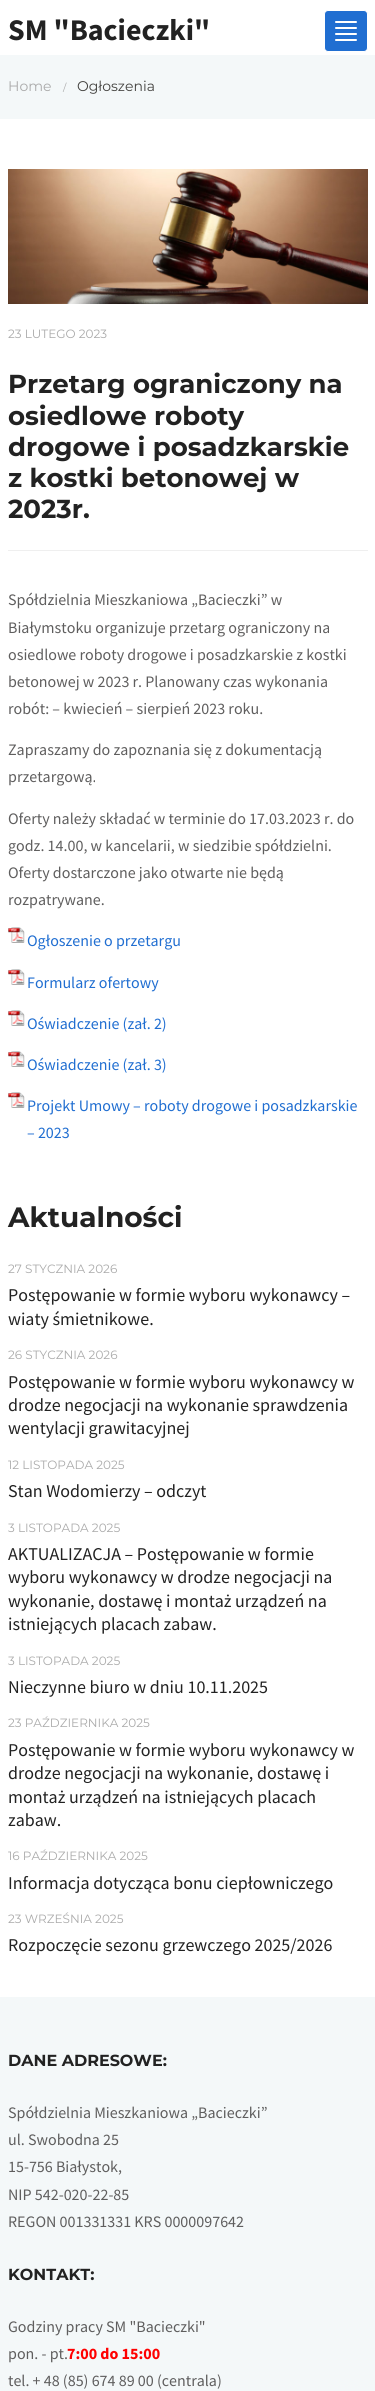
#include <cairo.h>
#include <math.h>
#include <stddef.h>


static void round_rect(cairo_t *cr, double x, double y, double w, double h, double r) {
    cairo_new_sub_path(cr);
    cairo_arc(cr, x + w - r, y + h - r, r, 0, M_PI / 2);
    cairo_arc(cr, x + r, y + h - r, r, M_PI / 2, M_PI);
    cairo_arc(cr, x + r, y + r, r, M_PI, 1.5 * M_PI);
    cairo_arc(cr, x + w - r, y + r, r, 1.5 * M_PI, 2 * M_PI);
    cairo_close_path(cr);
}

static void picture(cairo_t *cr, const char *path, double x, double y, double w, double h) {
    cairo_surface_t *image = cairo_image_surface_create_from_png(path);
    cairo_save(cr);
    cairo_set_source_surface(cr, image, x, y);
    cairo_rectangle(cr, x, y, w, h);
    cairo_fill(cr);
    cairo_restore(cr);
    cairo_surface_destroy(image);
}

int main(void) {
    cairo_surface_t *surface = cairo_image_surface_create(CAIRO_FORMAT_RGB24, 375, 2391);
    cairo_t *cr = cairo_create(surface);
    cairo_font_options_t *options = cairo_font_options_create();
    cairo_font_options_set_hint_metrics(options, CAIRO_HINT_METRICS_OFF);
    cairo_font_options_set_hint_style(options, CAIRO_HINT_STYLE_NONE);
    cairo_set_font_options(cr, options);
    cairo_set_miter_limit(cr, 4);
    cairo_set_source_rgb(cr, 1, 1, 1);
    cairo_paint(cr);
    cairo_select_font_face(cr, "Source Sans Pro", CAIRO_FONT_SLANT_NORMAL, CAIRO_FONT_WEIGHT_BOLD);
    cairo_set_font_size(cr, 30);
    cairo_set_source_rgb(cr, 0.133, 0.133, 0.133);
    cairo_move_to(cr, 8, 40);
    cairo_show_text(cr, "SM \"Bacieczki\"");
    cairo_set_source_rgb(cr, 0.125, 0.431, 0.82);
    round_rect(cr, 324.5, 10.5, 43, 41, 3.5);
    cairo_fill_preserve(cr);
    cairo_set_source_rgb(cr, 1, 1, 1);
    cairo_set_line_width(cr, 1);
    cairo_stroke(cr);
    round_rect(cr, 335, 21, 22, 2, 1);
    cairo_fill(cr);
    round_rect(cr, 335, 27, 22, 2, 1);
    cairo_fill(cr);
    round_rect(cr, 335, 33, 22, 2, 1);
    cairo_fill(cr);
    round_rect(cr, 335, 39, 22, 2, 1);
    cairo_fill(cr);
    cairo_set_source_rgb(cr, 0.957, 0.969, 0.973);
    cairo_rectangle(cr, 0, 55, 375, 64);
    cairo_fill(cr);
    cairo_select_font_face(cr, "Montserrat", CAIRO_FONT_SLANT_NORMAL, CAIRO_FONT_WEIGHT_NORMAL);
    cairo_set_font_size(cr, 14);
    cairo_set_source_rgb(cr, 0.667, 0.667, 0.667);
    cairo_move_to(cr, 8, 91);
    cairo_show_text(cr, "Home");
    cairo_set_font_size(cr, 10);
    cairo_move_to(cr, 63, 91);
    cairo_show_text(cr, "/");
    cairo_set_font_size(cr, 14);
    cairo_set_source_rgb(cr, 0.259, 0.255, 0.243);
    cairo_move_to(cr, 77, 91);
    cairo_show_text(cr, "Ogłoszenia");
    picture(cr, "img1.png", 8, 169, 360, 135);
    cairo_set_font_size(cr, 12);
    cairo_set_source_rgb(cr, 0.667, 0.667, 0.667);
    cairo_move_to(cr, 8, 338);
    cairo_show_text(cr, "23 LUTEGO 2023");
    cairo_set_source_rgb(cr, 0.937, 0.937, 0.937);
    cairo_rectangle(cr, 8, 550, 360, 1);
    cairo_fill(cr);
    cairo_select_font_face(cr, "Montserrat", CAIRO_FONT_SLANT_NORMAL, CAIRO_FONT_WEIGHT_BOLD);
    cairo_set_font_size(cr, 26);
    cairo_set_source_rgb(cr, 0.133, 0.133, 0.133);
    cairo_move_to(cr, 8, 393);
    cairo_show_text(cr, "Przetarg ograniczony na");
    cairo_move_to(cr, 8, 425);
    cairo_show_text(cr, "osiedlowe roboty");
    cairo_move_to(cr, 8, 456);
    cairo_show_text(cr, "drogowe i posadzkarskie");
    cairo_move_to(cr, 8, 487);
    cairo_show_text(cr, "z kostki betonowej w");
    cairo_move_to(cr, 8, 518);
    cairo_show_text(cr, "2023r.");
    cairo_select_font_face(cr, "Source Sans Pro", CAIRO_FONT_SLANT_NORMAL, CAIRO_FONT_WEIGHT_NORMAL);
    cairo_set_font_size(cr, 16);
    cairo_set_source_rgb(cr, 0.373, 0.369, 0.369);
    cairo_move_to(cr, 8, 605);
    cairo_show_text(cr, "Spółdzielnia Mieszkaniowa „Bacieczki” w");
    cairo_move_to(cr, 8, 633);
    cairo_show_text(cr, "Białymstoku organizuje przetarg ograniczony na");
    cairo_move_to(cr, 8, 660);
    cairo_show_text(cr, "osiedlowe roboty drogowe i posadzkarskie z kostki");
    cairo_move_to(cr, 8, 687);
    cairo_show_text(cr, "betonowej w 2023 r. Planowany czas wykonania");
    cairo_move_to(cr, 8, 714);
    cairo_show_text(cr, "robót: – kwiecień – sierpień 2023 roku.");
    cairo_move_to(cr, 8, 755);
    cairo_show_text(cr, "Zapraszamy do zapoznania się z dokumentacją");
    cairo_move_to(cr, 8, 782);
    cairo_show_text(cr, "przetargową.");
    cairo_move_to(cr, 8, 824);
    cairo_show_text(cr, "Oferty należy składać w terminie do 17.03.2023 r. do");
    cairo_move_to(cr, 8, 851);
    cairo_show_text(cr, "godz. 14.00, w kancelarii, w siedzibie spółdzielni.");
    cairo_move_to(cr, 8, 878);
    cairo_show_text(cr, "Oferty dostarczone jako otwarte nie będą");
    cairo_move_to(cr, 8, 905);
    cairo_show_text(cr, "rozpatrywane.");
    picture(cr, "img2.png", 8, 927, 17, 16);
    cairo_set_source_rgb(cr, 0.125, 0.431, 0.82);
    cairo_move_to(cr, 27, 946);
    cairo_show_text(cr, "Ogłoszenie o przetargu");
    picture(cr, "img2.png", 8, 969, 17, 16);
    cairo_move_to(cr, 27, 988);
    cairo_show_text(cr, "Formularz ofertowy");
    picture(cr, "img2.png", 8, 1010, 17, 16);
    cairo_move_to(cr, 27, 1029);
    cairo_show_text(cr, "Oświadczenie (zał. 2)");
    picture(cr, "img2.png", 8, 1051, 17, 16);
    cairo_move_to(cr, 27, 1070);
    cairo_show_text(cr, "Oświadczenie (zał. 3)");
    picture(cr, "img2.png", 8, 1092, 17, 16);
    cairo_move_to(cr, 27, 1111);
    cairo_show_text(cr, "Projekt Umowy – roboty drogowe i posadzkarskie");
    cairo_move_to(cr, 27, 1138);
    cairo_show_text(cr, "– 2023");
    cairo_select_font_face(cr, "Montserrat", CAIRO_FONT_SLANT_NORMAL, CAIRO_FONT_WEIGHT_BOLD);
    cairo_set_font_size(cr, 28);
    cairo_set_source_rgb(cr, 0.133, 0.133, 0.133);
    cairo_move_to(cr, 8, 1227);
    cairo_show_text(cr, "Aktualności");
    cairo_select_font_face(cr, "Montserrat", CAIRO_FONT_SLANT_NORMAL, CAIRO_FONT_WEIGHT_NORMAL);
    cairo_set_font_size(cr, 12);
    cairo_set_source_rgb(cr, 0.667, 0.667, 0.667);
    cairo_move_to(cr, 8, 1273);
    cairo_show_text(cr, "27 STYCZNIA 2026");
    cairo_select_font_face(cr, "Source Sans Pro", CAIRO_FONT_SLANT_NORMAL, CAIRO_FONT_WEIGHT_NORMAL);
    cairo_set_font_size(cr, 18);
    cairo_set_source_rgb(cr, 0.133, 0.133, 0.133);
    cairo_move_to(cr, 8, 1301);
    cairo_show_text(cr, "Postępowanie w formie wyboru wykonawcy –");
    cairo_move_to(cr, 8, 1325);
    cairo_show_text(cr, "wiaty śmietnikowe.");
    cairo_select_font_face(cr, "Montserrat", CAIRO_FONT_SLANT_NORMAL, CAIRO_FONT_WEIGHT_NORMAL);
    cairo_set_font_size(cr, 12);
    cairo_set_source_rgb(cr, 0.667, 0.667, 0.667);
    cairo_move_to(cr, 8, 1359);
    cairo_show_text(cr, "26 STYCZNIA 2026");
    cairo_select_font_face(cr, "Source Sans Pro", CAIRO_FONT_SLANT_NORMAL, CAIRO_FONT_WEIGHT_NORMAL);
    cairo_set_font_size(cr, 18);
    cairo_set_source_rgb(cr, 0.133, 0.133, 0.133);
    cairo_move_to(cr, 8, 1388);
    cairo_show_text(cr, "Postępowanie w formie wyboru wykonawcy w");
    cairo_move_to(cr, 8, 1411);
    cairo_show_text(cr, "drodze negocjacji na wykonanie sprawdzenia");
    cairo_move_to(cr, 8, 1434);
    cairo_show_text(cr, "wentylacji grawitacyjnej");
    cairo_select_font_face(cr, "Montserrat", CAIRO_FONT_SLANT_NORMAL, CAIRO_FONT_WEIGHT_NORMAL);
    cairo_set_font_size(cr, 12);
    cairo_set_source_rgb(cr, 0.667, 0.667, 0.667);
    cairo_move_to(cr, 8, 1469);
    cairo_show_text(cr, "12 LISTOPADA 2025");
    cairo_select_font_face(cr, "Source Sans Pro", CAIRO_FONT_SLANT_NORMAL, CAIRO_FONT_WEIGHT_NORMAL);
    cairo_set_font_size(cr, 18);
    cairo_set_source_rgb(cr, 0.133, 0.133, 0.133);
    cairo_move_to(cr, 8, 1497);
    cairo_show_text(cr, "Stan Wodomierzy – odczyt");
    cairo_select_font_face(cr, "Montserrat", CAIRO_FONT_SLANT_NORMAL, CAIRO_FONT_WEIGHT_NORMAL);
    cairo_set_font_size(cr, 12);
    cairo_set_source_rgb(cr, 0.667, 0.667, 0.667);
    cairo_move_to(cr, 8, 1532);
    cairo_show_text(cr, "3 LISTOPADA 2025");
    cairo_select_font_face(cr, "Source Sans Pro", CAIRO_FONT_SLANT_NORMAL, CAIRO_FONT_WEIGHT_NORMAL);
    cairo_set_font_size(cr, 18);
    cairo_set_source_rgb(cr, 0.133, 0.133, 0.133);
    cairo_move_to(cr, 8, 1560);
    cairo_show_text(cr, "AKTUALIZACJA – Postępowanie w formie");
    cairo_move_to(cr, 8, 1583);
    cairo_show_text(cr, "wyboru wykonawcy w drodze negocjacji na");
    cairo_move_to(cr, 8, 1607);
    cairo_show_text(cr, "wykonanie, dostawę i montaż urządzeń na");
    cairo_move_to(cr, 8, 1630);
    cairo_show_text(cr, "istniejących placach zabaw.");
    cairo_select_font_face(cr, "Montserrat", CAIRO_FONT_SLANT_NORMAL, CAIRO_FONT_WEIGHT_NORMAL);
    cairo_set_font_size(cr, 12);
    cairo_set_source_rgb(cr, 0.667, 0.667, 0.667);
    cairo_move_to(cr, 8, 1665);
    cairo_show_text(cr, "3 LISTOPADA 2025");
    cairo_select_font_face(cr, "Source Sans Pro", CAIRO_FONT_SLANT_NORMAL, CAIRO_FONT_WEIGHT_NORMAL);
    cairo_set_font_size(cr, 18);
    cairo_set_source_rgb(cr, 0.133, 0.133, 0.133);
    cairo_move_to(cr, 8, 1693);
    cairo_show_text(cr, "Nieczynne biuro w dniu 10.11.2025");
    cairo_select_font_face(cr, "Montserrat", CAIRO_FONT_SLANT_NORMAL, CAIRO_FONT_WEIGHT_NORMAL);
    cairo_set_font_size(cr, 12);
    cairo_set_source_rgb(cr, 0.667, 0.667, 0.667);
    cairo_move_to(cr, 8, 1727);
    cairo_show_text(cr, "23 PAŹDZIERNIKA 2025");
    cairo_select_font_face(cr, "Source Sans Pro", CAIRO_FONT_SLANT_NORMAL, CAIRO_FONT_WEIGHT_NORMAL);
    cairo_set_font_size(cr, 18);
    cairo_set_source_rgb(cr, 0.133, 0.133, 0.133);
    cairo_move_to(cr, 8, 1756);
    cairo_show_text(cr, "Postępowanie w formie wyboru wykonawcy w");
    cairo_move_to(cr, 8, 1779);
    cairo_show_text(cr, "drodze negocjacji na wykonanie, dostawę i");
    cairo_move_to(cr, 8, 1803);
    cairo_show_text(cr, "montaż urządzeń na istniejących placach");
    cairo_move_to(cr, 8, 1826);
    cairo_show_text(cr, "zabaw.");
    cairo_select_font_face(cr, "Montserrat", CAIRO_FONT_SLANT_NORMAL, CAIRO_FONT_WEIGHT_NORMAL);
    cairo_set_font_size(cr, 12);
    cairo_set_source_rgb(cr, 0.667, 0.667, 0.667);
    cairo_move_to(cr, 8, 1860);
    cairo_show_text(cr, "16 PAŹDZIERNIKA 2025");
    cairo_select_font_face(cr, "Source Sans Pro", CAIRO_FONT_SLANT_NORMAL, CAIRO_FONT_WEIGHT_NORMAL);
    cairo_set_font_size(cr, 18);
    cairo_set_source_rgb(cr, 0.133, 0.133, 0.133);
    cairo_move_to(cr, 8, 1889);
    cairo_show_text(cr, "Informacja dotycząca bonu ciepłowniczego");
    cairo_select_font_face(cr, "Montserrat", CAIRO_FONT_SLANT_NORMAL, CAIRO_FONT_WEIGHT_NORMAL);
    cairo_set_font_size(cr, 12);
    cairo_set_source_rgb(cr, 0.667, 0.667, 0.667);
    cairo_move_to(cr, 8, 1923);
    cairo_show_text(cr, "23 WRZEŚNIA 2025");
    cairo_select_font_face(cr, "Source Sans Pro", CAIRO_FONT_SLANT_NORMAL, CAIRO_FONT_WEIGHT_NORMAL);
    cairo_set_font_size(cr, 18);
    cairo_set_source_rgb(cr, 0.133, 0.133, 0.133);
    cairo_move_to(cr, 8, 1951);
    cairo_show_text(cr, "Rozpoczęcie sezonu grzewczego 2025/2026");
    cairo_set_source_rgb(cr, 0.957, 0.969, 0.973);
    cairo_rectangle(cr, 0, 1997, 375, 394);
    cairo_fill(cr);
    cairo_select_font_face(cr, "Montserrat", CAIRO_FONT_SLANT_NORMAL, CAIRO_FONT_WEIGHT_BOLD);
    cairo_set_font_size(cr, 16);
    cairo_set_source_rgb(cr, 0.133, 0.133, 0.133);
    cairo_move_to(cr, 8, 2066);
    cairo_show_text(cr, "DANE ADRESOWE:");
    cairo_select_font_face(cr, "Source Sans Pro", CAIRO_FONT_SLANT_NORMAL, CAIRO_FONT_WEIGHT_NORMAL);
    cairo_set_source_rgb(cr, 0.373, 0.369, 0.369);
    cairo_move_to(cr, 8, 2118);
    cairo_show_text(cr, "Spółdzielnia Mieszkaniowa „Bacieczki”");
    cairo_move_to(cr, 8, 2145);
    cairo_show_text(cr, "ul. Swobodna 25");
    cairo_move_to(cr, 8, 2172);
    cairo_show_text(cr, "15-756 Białystok,");
    cairo_move_to(cr, 8, 2200);
    cairo_show_text(cr, "NIP 542-020-22-85");
    cairo_move_to(cr, 8, 2227);
    cairo_show_text(cr, "REGON 001331331 KRS 0000097642");
    cairo_select_font_face(cr, "Montserrat", CAIRO_FONT_SLANT_NORMAL, CAIRO_FONT_WEIGHT_BOLD);
    cairo_set_source_rgb(cr, 0.133, 0.133, 0.133);
    cairo_move_to(cr, 8, 2280);
    cairo_show_text(cr, "KONTAKT:");
    cairo_select_font_face(cr, "Source Sans Pro", CAIRO_FONT_SLANT_NORMAL, CAIRO_FONT_WEIGHT_NORMAL);
    cairo_set_source_rgb(cr, 0.373, 0.369, 0.369);
    cairo_move_to(cr, 8, 2332);
    cairo_show_text(cr, "Godziny pracy SM \"Bacieczki\"");
    cairo_move_to(cr, 8, 2359);
    cairo_show_text(cr, "pon. - pt.");
    cairo_select_font_face(cr, "Source Sans Pro", CAIRO_FONT_SLANT_NORMAL, CAIRO_FONT_WEIGHT_BOLD);
    cairo_set_source_rgb(cr, 1, 0, 0);
    cairo_move_to(cr, 67, 2359);
    cairo_show_text(cr, "7:00 do 15:00");
    cairo_select_font_face(cr, "Source Sans Pro", CAIRO_FONT_SLANT_NORMAL, CAIRO_FONT_WEIGHT_NORMAL);
    cairo_set_source_rgb(cr, 0.373, 0.369, 0.369);
    cairo_move_to(cr, 8, 2386);
    cairo_show_text(cr, "tel. + 48 (85) 674 89 00 (centrala)");
    cairo_surface_write_to_png(surface, "page.png");
    cairo_font_options_destroy(options);
    cairo_destroy(cr);
    cairo_surface_destroy(surface);
    return 0;
}
